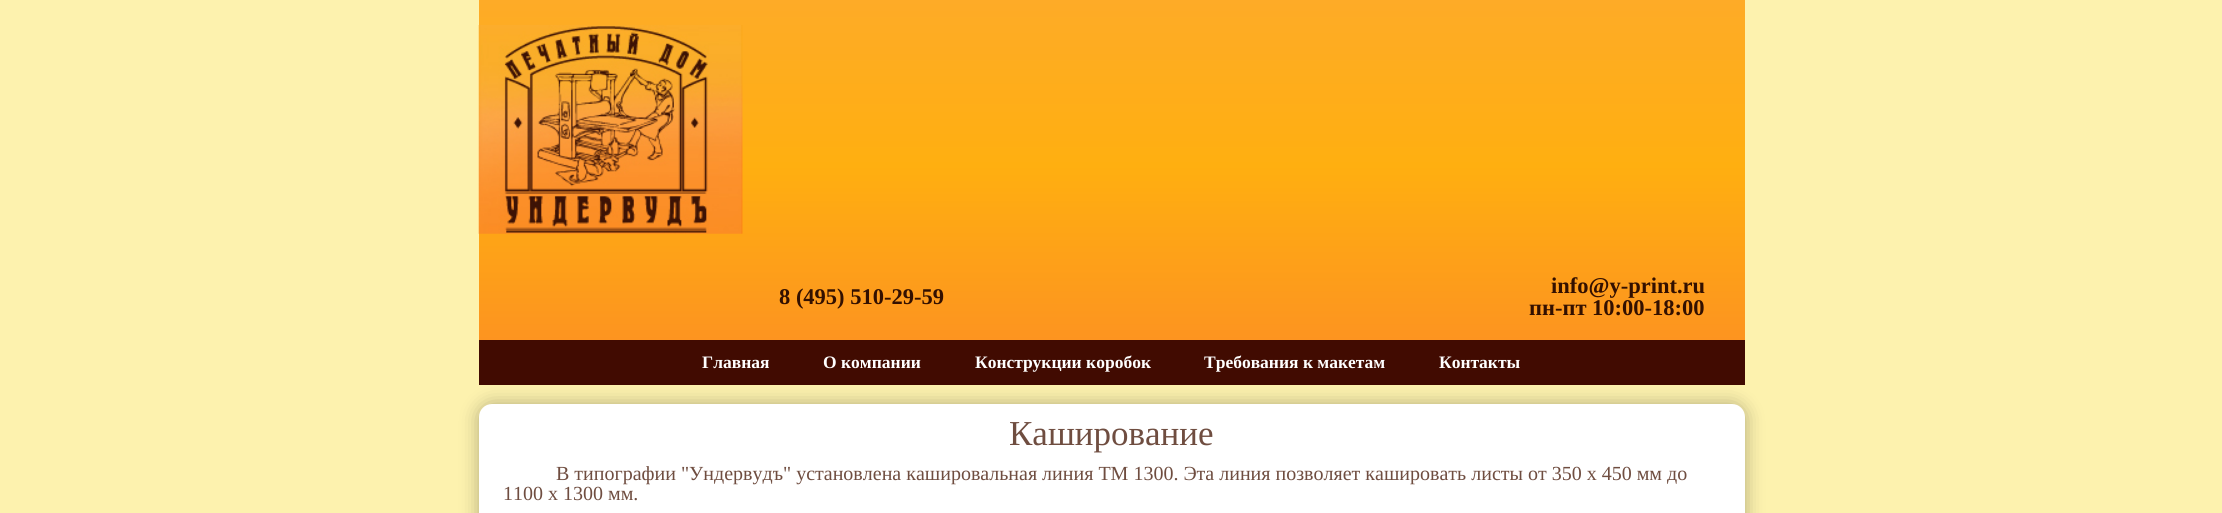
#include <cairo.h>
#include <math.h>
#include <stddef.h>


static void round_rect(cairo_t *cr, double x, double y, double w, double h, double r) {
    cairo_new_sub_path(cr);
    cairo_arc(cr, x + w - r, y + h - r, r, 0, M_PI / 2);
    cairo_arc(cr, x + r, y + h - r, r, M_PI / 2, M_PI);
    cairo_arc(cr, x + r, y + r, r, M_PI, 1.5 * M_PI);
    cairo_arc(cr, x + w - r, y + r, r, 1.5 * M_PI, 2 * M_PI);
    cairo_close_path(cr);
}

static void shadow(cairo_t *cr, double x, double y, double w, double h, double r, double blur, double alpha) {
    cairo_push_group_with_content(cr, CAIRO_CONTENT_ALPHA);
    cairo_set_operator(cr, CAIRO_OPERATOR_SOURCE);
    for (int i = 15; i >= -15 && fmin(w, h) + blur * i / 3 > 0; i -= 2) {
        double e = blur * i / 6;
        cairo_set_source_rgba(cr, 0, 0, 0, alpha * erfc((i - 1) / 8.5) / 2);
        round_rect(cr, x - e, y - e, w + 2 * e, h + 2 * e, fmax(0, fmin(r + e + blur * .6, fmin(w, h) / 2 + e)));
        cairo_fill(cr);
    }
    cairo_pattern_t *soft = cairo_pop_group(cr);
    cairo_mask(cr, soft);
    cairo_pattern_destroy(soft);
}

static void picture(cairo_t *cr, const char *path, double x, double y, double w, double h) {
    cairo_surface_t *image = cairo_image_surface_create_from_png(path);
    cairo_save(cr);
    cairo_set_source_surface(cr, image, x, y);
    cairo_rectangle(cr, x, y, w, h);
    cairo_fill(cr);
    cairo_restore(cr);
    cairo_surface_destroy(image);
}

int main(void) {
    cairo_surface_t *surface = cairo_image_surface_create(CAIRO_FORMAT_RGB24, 2222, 513);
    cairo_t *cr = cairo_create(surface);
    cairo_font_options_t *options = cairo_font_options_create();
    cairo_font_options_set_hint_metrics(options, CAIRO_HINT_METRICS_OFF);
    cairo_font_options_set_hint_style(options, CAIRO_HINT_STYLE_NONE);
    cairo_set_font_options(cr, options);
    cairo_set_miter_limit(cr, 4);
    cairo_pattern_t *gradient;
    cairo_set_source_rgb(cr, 0.992, 0.949, 0.682);
    cairo_paint(cr);
    gradient = cairo_pattern_create_linear(1112, 0, 1112, 385);
    cairo_pattern_add_color_stop_rgba(gradient, 0, 0.996, 0.671, 0.153, 1);
    cairo_pattern_add_color_stop_rgba(gradient, 0.43, 1, 0.686, 0.063, 1);
    cairo_pattern_add_color_stop_rgba(gradient, 1, 0.988, 0.553, 0.141, 1);
    cairo_set_source(cr, gradient);
    cairo_pattern_destroy(gradient);
    cairo_rectangle(cr, 479, 0, 1266, 340);
    cairo_fill(cr);
    picture(cr, "img1.png", 478, 25, 265, 209);
    cairo_select_font_face(cr, "Liberation Serif", CAIRO_FONT_SLANT_NORMAL, CAIRO_FONT_WEIGHT_BOLD);
    cairo_set_font_size(cr, 22.5);
    cairo_set_source_rgb(cr, 0.2, 0.063, 0);
    cairo_move_to(cr, 779, 304);
    cairo_show_text(cr, "8 (495) 510-29-59");
    cairo_move_to(cr, 1551, 293);
    cairo_show_text(cr, "info@y-print.ru");
    cairo_move_to(cr, 1529, 315);
    cairo_show_text(cr, "пн-пт 10:00-18:00");
    cairo_set_source_rgb(cr, 0, 0, 0);
    shadow(cr, 479, 404, 1266, 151, 13, 9.5, 0.3);
    cairo_set_source_rgb(cr, 0.255, 0.043, 0.004);
    cairo_rectangle(cr, 479, 340, 1266, 45);
    cairo_fill(cr);
    cairo_set_font_size(cr, 17.5);
    cairo_set_source_rgb(cr, 1, 1, 1);
    cairo_move_to(cr, 702, 368);
    cairo_show_text(cr, "Главная");
    cairo_move_to(cr, 823, 368);
    cairo_show_text(cr, "О компании");
    cairo_move_to(cr, 975, 368);
    cairo_show_text(cr, "Конструкции коробок");
    cairo_move_to(cr, 1204, 368);
    cairo_show_text(cr, "Требования к макетам");
    cairo_move_to(cr, 1439, 368);
    cairo_show_text(cr, "Контакты");
    round_rect(cr, 479, 404, 1266, 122, 13);
    cairo_fill(cr);
    cairo_select_font_face(cr, "Liberation Serif", CAIRO_FONT_SLANT_NORMAL, CAIRO_FONT_WEIGHT_NORMAL);
    cairo_set_font_size(cr, 35);
    cairo_set_source_rgb(cr, 0.435, 0.302, 0.251);
    cairo_move_to(cr, 1009, 445);
    cairo_show_text(cr, "Каширование");
    cairo_set_font_size(cr, 20);
    cairo_move_to(cr, 556, 480);
    cairo_show_text(cr, "В типографии \"Ундервудъ\" установлена кашировальная линия ТМ 1300. Эта линия позволяет кашировать листы от 350 х 450 мм до");
    cairo_move_to(cr, 503, 500);
    cairo_show_text(cr, "1100 х 1300 мм.");
    cairo_surface_write_to_png(surface, "page.png");
    cairo_font_options_destroy(options);
    cairo_destroy(cr);
    cairo_surface_destroy(surface);
    return 0;
}
